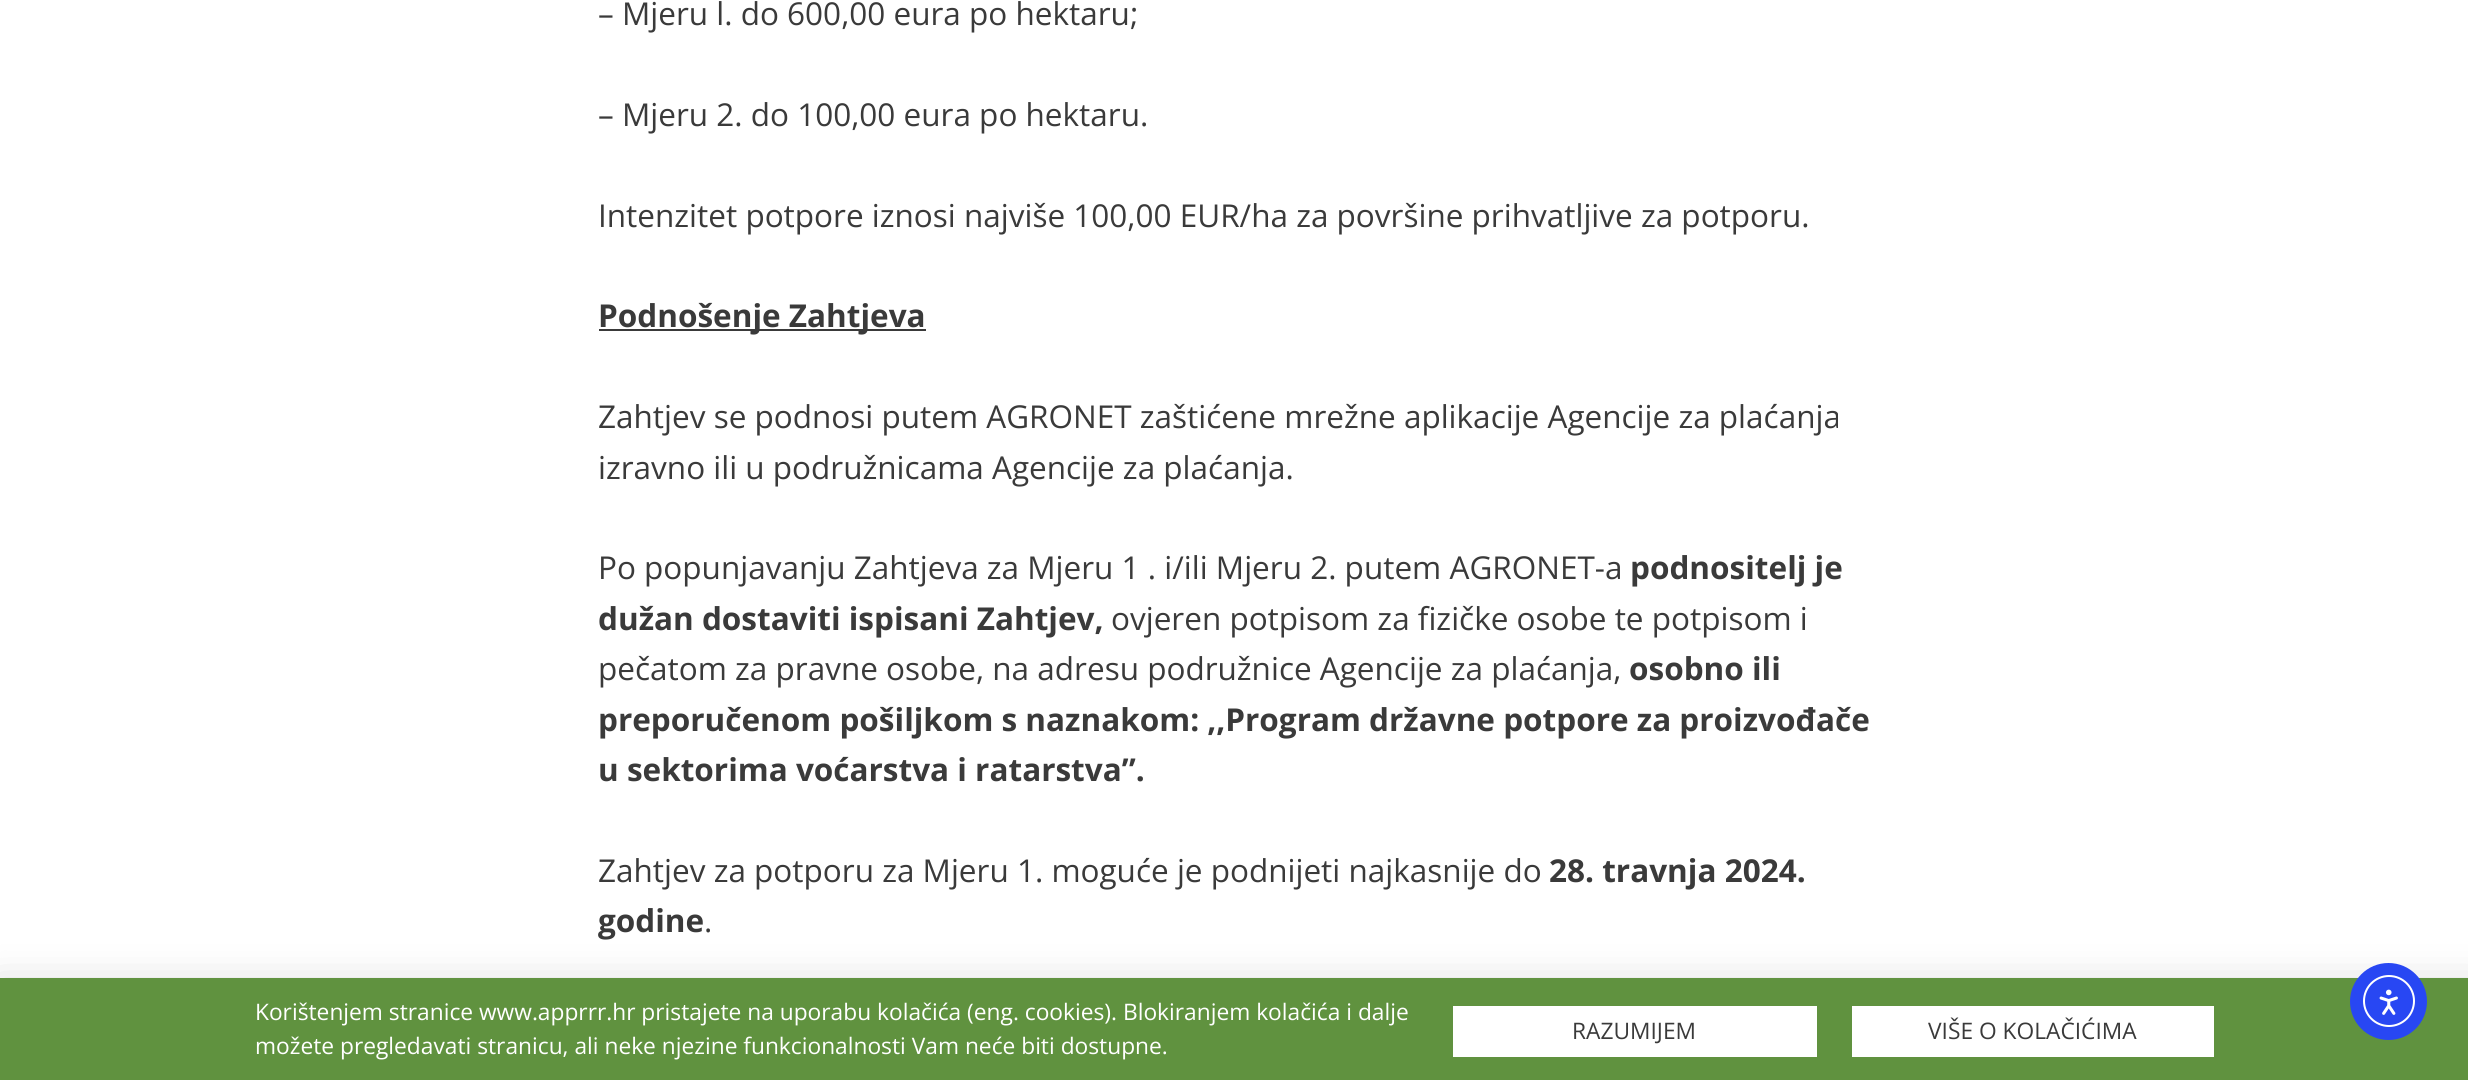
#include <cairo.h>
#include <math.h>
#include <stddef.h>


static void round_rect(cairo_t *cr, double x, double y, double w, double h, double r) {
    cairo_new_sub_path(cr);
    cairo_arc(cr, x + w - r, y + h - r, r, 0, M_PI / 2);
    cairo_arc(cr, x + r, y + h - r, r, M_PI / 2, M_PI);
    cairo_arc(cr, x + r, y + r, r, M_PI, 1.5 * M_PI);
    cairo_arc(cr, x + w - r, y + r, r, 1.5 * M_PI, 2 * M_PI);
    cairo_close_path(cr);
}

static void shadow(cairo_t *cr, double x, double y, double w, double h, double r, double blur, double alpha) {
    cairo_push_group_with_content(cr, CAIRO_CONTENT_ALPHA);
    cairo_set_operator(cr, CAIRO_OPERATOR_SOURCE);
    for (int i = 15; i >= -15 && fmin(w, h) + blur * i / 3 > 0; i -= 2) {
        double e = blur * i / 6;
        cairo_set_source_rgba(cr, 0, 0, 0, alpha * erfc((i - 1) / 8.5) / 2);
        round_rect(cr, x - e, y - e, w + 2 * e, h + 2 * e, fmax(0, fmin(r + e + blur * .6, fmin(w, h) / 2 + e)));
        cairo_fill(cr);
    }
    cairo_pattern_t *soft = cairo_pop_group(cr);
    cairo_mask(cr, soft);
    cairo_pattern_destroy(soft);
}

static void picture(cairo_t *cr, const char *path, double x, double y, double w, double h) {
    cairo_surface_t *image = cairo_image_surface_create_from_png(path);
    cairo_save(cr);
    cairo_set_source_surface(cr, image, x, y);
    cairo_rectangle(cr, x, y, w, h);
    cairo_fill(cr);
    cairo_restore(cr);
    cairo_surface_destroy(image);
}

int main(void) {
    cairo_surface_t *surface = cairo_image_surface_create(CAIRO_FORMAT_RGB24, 2468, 1080);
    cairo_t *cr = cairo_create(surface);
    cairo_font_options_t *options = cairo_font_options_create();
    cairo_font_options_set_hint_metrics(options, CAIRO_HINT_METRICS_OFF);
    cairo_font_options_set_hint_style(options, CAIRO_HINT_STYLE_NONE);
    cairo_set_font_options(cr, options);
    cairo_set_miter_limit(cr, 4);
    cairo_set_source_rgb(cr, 1, 1, 1);
    cairo_paint(cr);
    cairo_select_font_face(cr, "Open Sans", CAIRO_FONT_SLANT_NORMAL, CAIRO_FONT_WEIGHT_NORMAL);
    cairo_set_font_size(cr, 31.5);
    cairo_set_source_rgb(cr, 0.227, 0.227, 0.227);
    cairo_move_to(cr, 598, 25);
    cairo_show_text(cr, "– Mjeru l. do 600,00 eura po hektaru;");
    cairo_move_to(cr, 598, 126);
    cairo_show_text(cr, "– Mjeru 2. do 100,00 eura po hektaru.");
    cairo_move_to(cr, 598, 227);
    cairo_show_text(cr, "Intenzitet potpore iznosi najviše 100,00 EUR/ha za površine prihvatljive za potporu.");
    cairo_rectangle(cr, 599, 329, 327, 2);
    cairo_fill(cr);
    cairo_select_font_face(cr, "Open Sans", CAIRO_FONT_SLANT_NORMAL, CAIRO_FONT_WEIGHT_BOLD);
    cairo_move_to(cr, 598, 327);
    cairo_show_text(cr, "Podnošenje Zahtjeva");
    cairo_select_font_face(cr, "Open Sans", CAIRO_FONT_SLANT_NORMAL, CAIRO_FONT_WEIGHT_NORMAL);
    cairo_move_to(cr, 598, 428);
    cairo_show_text(cr, "Zahtjev se podnosi putem AGRONET zaštićene mrežne aplikacije Agencije za plaćanja");
    cairo_move_to(cr, 598, 479);
    cairo_show_text(cr, "izravno ili u podružnicama Agencije za plaćanja.");
    cairo_move_to(cr, 598, 579);
    cairo_show_text(cr, "Po popunjavanju Zahtjeva za Mjeru 1 . i/ili Mjeru 2. putem AGRONET-a");
    cairo_select_font_face(cr, "Open Sans", CAIRO_FONT_SLANT_NORMAL, CAIRO_FONT_WEIGHT_BOLD);
    cairo_move_to(cr, 1630, 579);
    cairo_show_text(cr, "podnositelj je");
    cairo_move_to(cr, 598, 630);
    cairo_show_text(cr, "dužan dostaviti ispisani Zahtjev,");
    cairo_select_font_face(cr, "Open Sans", CAIRO_FONT_SLANT_NORMAL, CAIRO_FONT_WEIGHT_NORMAL);
    cairo_move_to(cr, 1111, 630);
    cairo_show_text(cr, "ovjeren potpisom za fizičke osobe te potpisom i");
    cairo_move_to(cr, 598, 680);
    cairo_show_text(cr, "pečatom za pravne osobe, na adresu podružnice Agencije za plaćanja,");
    cairo_select_font_face(cr, "Open Sans", CAIRO_FONT_SLANT_NORMAL, CAIRO_FONT_WEIGHT_BOLD);
    cairo_move_to(cr, 1629, 680);
    cairo_show_text(cr, "osobno ili");
    cairo_move_to(cr, 598, 731);
    cairo_show_text(cr, "preporučenom pošiljkom s naznakom: ,,Program državne potpore za proizvođače");
    cairo_move_to(cr, 598, 781);
    cairo_show_text(cr, "u sektorima voćarstva i ratarstva”.");
    cairo_select_font_face(cr, "Open Sans", CAIRO_FONT_SLANT_NORMAL, CAIRO_FONT_WEIGHT_NORMAL);
    cairo_move_to(cr, 598, 882);
    cairo_show_text(cr, "Zahtjev za potporu za Mjeru 1. moguće je podnijeti najkasnije do");
    cairo_select_font_face(cr, "Open Sans", CAIRO_FONT_SLANT_NORMAL, CAIRO_FONT_WEIGHT_BOLD);
    cairo_move_to(cr, 1549, 882);
    cairo_show_text(cr, "28. travnja 2024.");
    cairo_move_to(cr, 598, 932);
    cairo_show_text(cr, "godine");
    cairo_select_font_face(cr, "Open Sans", CAIRO_FONT_SLANT_NORMAL, CAIRO_FONT_WEIGHT_NORMAL);
    cairo_move_to(cr, 704, 932);
    cairo_show_text(cr, ".");
    cairo_set_source_rgb(cr, 0, 0, 0);
    shadow(cr, -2, 987, 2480, 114, 0, 20, 0.2);
    cairo_set_source_rgb(cr, 0.376, 0.573, 0.247);
    cairo_rectangle(cr, 0, 978, 2468, 102);
    cairo_fill(cr);
    cairo_set_font_size(cr, 22.75);
    cairo_set_source_rgb(cr, 1, 1, 1);
    cairo_move_to(cr, 255, 1020);
    cairo_show_text(cr, "Korištenjem stranice www.apprrr.hr pristajete na uporabu kolačića (eng. cookies). Blokiranjem kolačića i dalje");
    cairo_move_to(cr, 255, 1054);
    cairo_show_text(cr, "možete pregledavati stranicu, ali neke njezine funkcionalnosti Vam neće biti dostupne.");
    cairo_rectangle(cr, 1453, 1006, 364, 51);
    cairo_fill(cr);
    cairo_set_source_rgb(cr, 0.227, 0.227, 0.227);
    cairo_move_to(cr, 1572, 1039);
    cairo_show_text(cr, "RAZUMIJEM");
    cairo_set_source_rgb(cr, 1, 1, 1);
    cairo_rectangle(cr, 1852, 1006, 362, 51);
    cairo_fill(cr);
    cairo_set_source_rgb(cr, 0.227, 0.227, 0.227);
    cairo_move_to(cr, 1928, 1039);
    cairo_show_text(cr, "VIŠE O KOLAČIĆIMA");
    cairo_set_source_rgb(cr, 0.157, 0.278, 0.953);
    cairo_new_path(cr);
    cairo_arc(cr, 2388.5, 1001.5, 38.5, 0, 2 * M_PI);
    cairo_fill(cr);
    cairo_arc(cr, 2389, 1001, 25, 0, 2 * M_PI);
    cairo_set_source_rgb(cr, 1, 1, 1);
    cairo_stroke(cr);
    picture(cr, "img1.png", 2379, 989, 19, 26);
    cairo_surface_write_to_png(surface, "page.png");
    cairo_font_options_destroy(options);
    cairo_destroy(cr);
    cairo_surface_destroy(surface);
    return 0;
}
